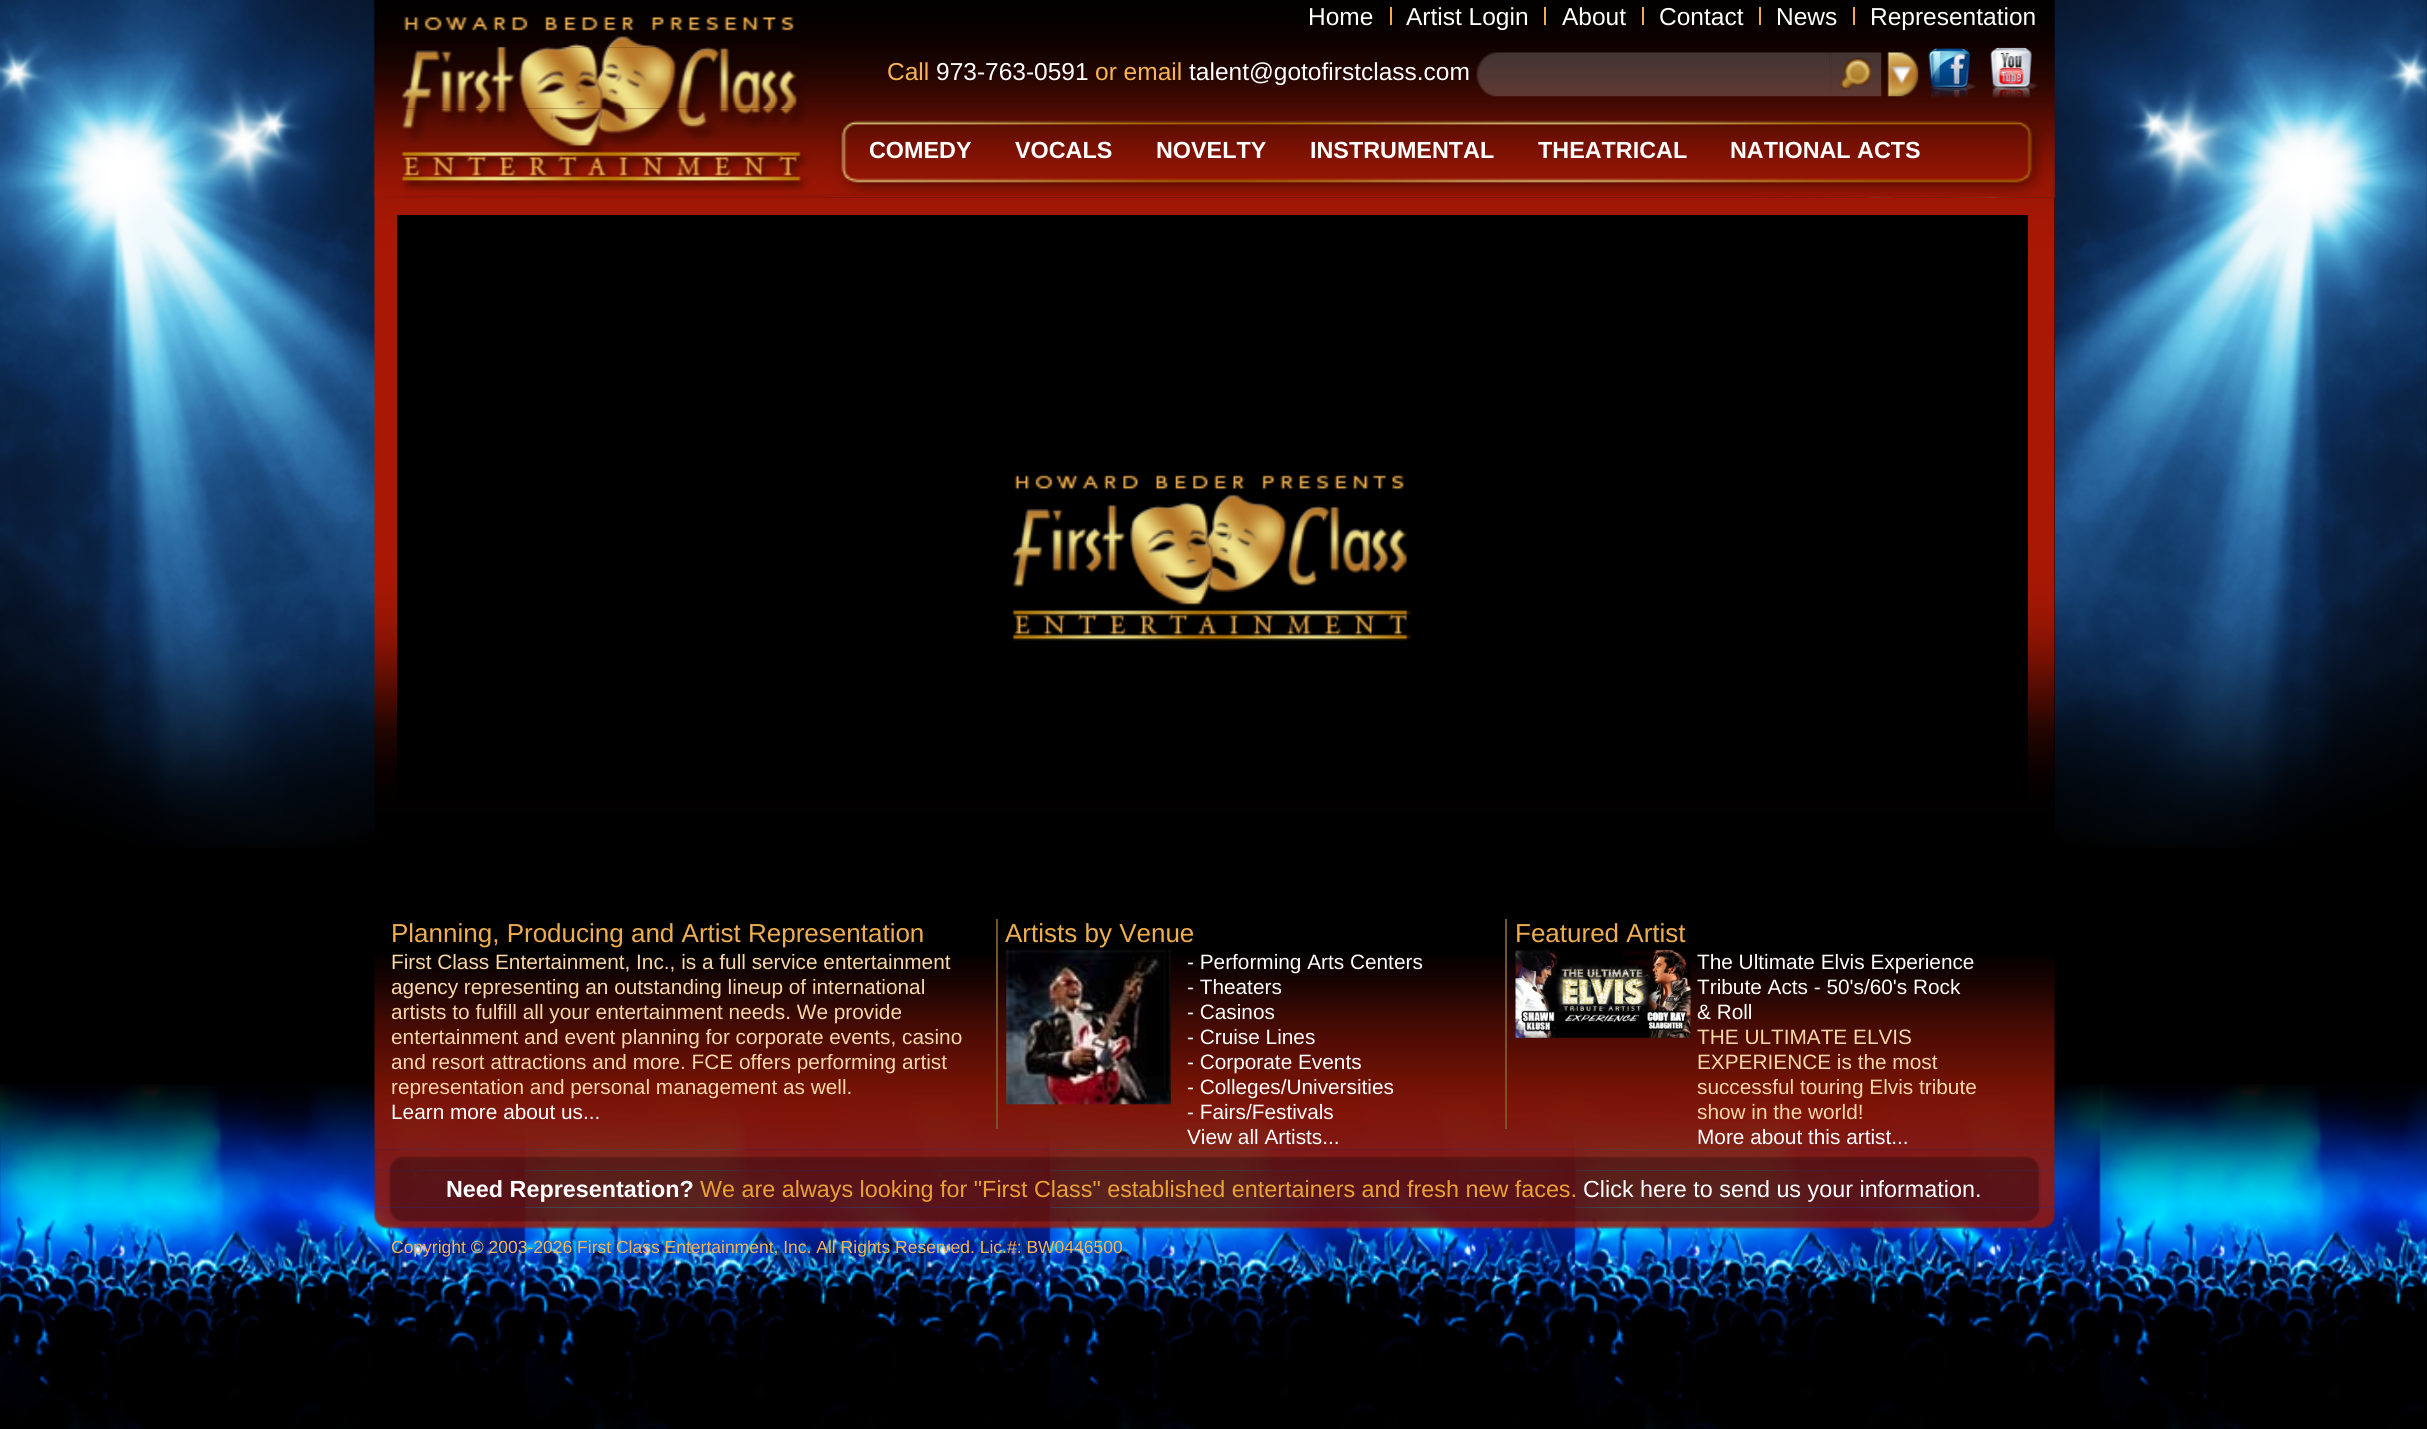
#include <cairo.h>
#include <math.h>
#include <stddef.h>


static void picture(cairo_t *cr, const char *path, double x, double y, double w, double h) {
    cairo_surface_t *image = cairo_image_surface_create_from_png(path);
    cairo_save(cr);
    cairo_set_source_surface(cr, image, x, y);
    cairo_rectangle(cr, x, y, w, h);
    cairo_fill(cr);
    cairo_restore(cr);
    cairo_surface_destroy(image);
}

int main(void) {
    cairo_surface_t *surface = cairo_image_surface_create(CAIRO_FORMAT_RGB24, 2427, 1429);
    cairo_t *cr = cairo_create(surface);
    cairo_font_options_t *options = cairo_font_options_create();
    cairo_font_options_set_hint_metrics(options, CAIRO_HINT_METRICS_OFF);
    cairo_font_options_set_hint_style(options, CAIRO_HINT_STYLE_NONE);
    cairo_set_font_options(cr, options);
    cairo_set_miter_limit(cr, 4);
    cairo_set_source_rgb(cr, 0, 0, 0);
    cairo_paint(cr);
    picture(cr, "img1.png", 0, 0, 788, 848);
    picture(cr, "img2.png", 1640, 0, 787, 848);
    cairo_set_source_rgb(cr, 0, 0, 0);
    cairo_rectangle(cr, 375, 198, 1680, 638);
    cairo_fill(cr);
    picture(cr, "img13.png", 374, 197, 1681, 621);
    picture(cr, "img3.png", 373, 0, 1682, 198);
    picture(cr, "img4.png", 374, 0, 420, 48);
    cairo_select_font_face(cr, "Liberation Sans", CAIRO_FONT_SLANT_NORMAL, CAIRO_FONT_WEIGHT_NORMAL);
    cairo_set_font_size(cr, 24.5);
    cairo_set_source_rgb(cr, 1, 1, 1);
    cairo_move_to(cr, 1308, 25);
    cairo_show_text(cr, "Home");
    cairo_set_source_rgb(cr, 0.933, 0.682, 0.31);
    cairo_rectangle(cr, 1390, 7, 2, 18);
    cairo_fill(cr);
    cairo_set_source_rgb(cr, 1, 1, 1);
    cairo_move_to(cr, 1406, 25);
    cairo_show_text(cr, "Artist Login");
    cairo_set_source_rgb(cr, 0.933, 0.682, 0.31);
    cairo_rectangle(cr, 1544, 7, 2, 18);
    cairo_fill(cr);
    cairo_set_source_rgb(cr, 1, 1, 1);
    cairo_move_to(cr, 1562, 25);
    cairo_show_text(cr, "About");
    cairo_set_source_rgb(cr, 0.933, 0.682, 0.31);
    cairo_rectangle(cr, 1642, 7, 2, 18);
    cairo_fill(cr);
    cairo_set_source_rgb(cr, 1, 1, 1);
    cairo_move_to(cr, 1659, 25);
    cairo_show_text(cr, "Contact");
    cairo_set_source_rgb(cr, 0.933, 0.682, 0.31);
    cairo_rectangle(cr, 1759, 7, 2, 18);
    cairo_fill(cr);
    cairo_set_source_rgb(cr, 1, 1, 1);
    cairo_move_to(cr, 1776, 25);
    cairo_show_text(cr, "News");
    cairo_set_source_rgb(cr, 0.933, 0.682, 0.31);
    cairo_rectangle(cr, 1853, 7, 2, 18);
    cairo_fill(cr);
    cairo_set_source_rgb(cr, 1, 1, 1);
    cairo_move_to(cr, 1870, 25);
    cairo_show_text(cr, "Representation");
    picture(cr, "img5.png", 374, 47, 430, 63);
    cairo_set_source_rgb(cr, 0.965, 0.706, 0.322);
    cairo_move_to(cr, 887, 80);
    cairo_show_text(cr, "Call");
    cairo_set_source_rgb(cr, 1, 1, 1);
    cairo_move_to(cr, 936, 80);
    cairo_show_text(cr, "973-763-0591");
    cairo_set_source_rgb(cr, 0.965, 0.706, 0.322);
    cairo_move_to(cr, 1095, 80);
    cairo_show_text(cr, "or email");
    cairo_set_source_rgb(cr, 1, 1, 1);
    cairo_move_to(cr, 1189, 80);
    cairo_show_text(cr, "talent@gotofirstclass.com");
    picture(cr, "img6.png", 1476, 52, 355, 45);
    picture(cr, "img7.png", 1830, 52, 52, 45);
    picture(cr, "img8.png", 1887, 52, 32, 45);
    picture(cr, "img9.png", 1928, 48, 48, 50);
    picture(cr, "img10.png", 1990, 47, 47, 51);
    picture(cr, "img11.png", 373, 108, 453, 90);
    picture(cr, "img12.png", 826, 119, 1218, 77);
    cairo_select_font_face(cr, "Liberation Sans", CAIRO_FONT_SLANT_NORMAL, CAIRO_FONT_WEIGHT_BOLD);
    cairo_set_font_size(cr, 23.35);
    cairo_move_to(cr, 869, 158);
    cairo_show_text(cr, "COMEDY");
    cairo_move_to(cr, 1015, 158);
    cairo_show_text(cr, "VOCALS");
    cairo_move_to(cr, 1156, 158);
    cairo_show_text(cr, "NOVELTY");
    cairo_move_to(cr, 1310, 158);
    cairo_show_text(cr, "INSTRUMENTAL");
    cairo_move_to(cr, 1538, 158);
    cairo_show_text(cr, "THEATRICAL");
    cairo_move_to(cr, 1730, 158);
    cairo_show_text(cr, "NATIONAL ACTS");
    cairo_set_source_rgb(cr, 0, 0, 0);
    cairo_rectangle(cr, 397, 215, 1631, 585);
    cairo_fill(cr);
    picture(cr, "img15.png", 1406, 475, 5, 165);
    picture(cr, "img14.png", 1012, 475, 395, 166);
    picture(cr, "img22.png", 0, 1084, 2427, 345);
    picture(cr, "img20.png", 374, 1170, 1681, 38);
    picture(cr, "img19.png", 374, 1149, 1681, 22);
    picture(cr, "img16.png", 374, 956, 1681, 194);
    cairo_select_font_face(cr, "Liberation Sans", CAIRO_FONT_SLANT_NORMAL, CAIRO_FONT_WEIGHT_NORMAL);
    cairo_set_font_size(cr, 26);
    cairo_set_source_rgb(cr, 0.933, 0.682, 0.31);
    cairo_move_to(cr, 391, 942);
    cairo_show_text(cr, "Planning, Producing and Artist Representation");
    cairo_set_font_size(cr, 20.8);
    cairo_set_source_rgb(cr, 0.976, 0.843, 0.651);
    cairo_move_to(cr, 391, 969);
    cairo_show_text(cr, "First Class Entertainment, Inc., is a full service entertainment");
    cairo_move_to(cr, 391, 994);
    cairo_show_text(cr, "agency representing an outstanding lineup of international");
    cairo_move_to(cr, 391, 1019);
    cairo_show_text(cr, "artists to fulfill all your entertainment needs. We provide");
    cairo_move_to(cr, 391, 1044);
    cairo_show_text(cr, "entertainment and event planning for corporate events, casino");
    cairo_move_to(cr, 391, 1069);
    cairo_show_text(cr, "and resort attractions and more. FCE offers performing artist");
    cairo_move_to(cr, 391, 1094);
    cairo_show_text(cr, "representation and personal management as well.");
    cairo_set_source_rgb(cr, 1, 1, 1);
    cairo_move_to(cr, 391, 1119);
    cairo_show_text(cr, "Learn more about us...");
    cairo_set_source_rgb(cr, 0.467, 0.329, 0.153);
    cairo_rectangle(cr, 996, 919, 2, 210);
    cairo_fill(cr);
    cairo_set_font_size(cr, 26);
    cairo_set_source_rgb(cr, 0.933, 0.682, 0.31);
    cairo_move_to(cr, 1005, 942);
    cairo_show_text(cr, "Artists by Venue");
    picture(cr, "img17.png", 1006, 950, 165, 155);
    cairo_set_font_size(cr, 20.8);
    cairo_set_source_rgb(cr, 1, 1, 1);
    cairo_move_to(cr, 1187, 969);
    cairo_show_text(cr, "- Performing Arts Centers");
    cairo_move_to(cr, 1187, 994);
    cairo_show_text(cr, "- Theaters");
    cairo_move_to(cr, 1187, 1019);
    cairo_show_text(cr, "- Casinos");
    cairo_move_to(cr, 1187, 1044);
    cairo_show_text(cr, "- Cruise Lines");
    cairo_move_to(cr, 1187, 1069);
    cairo_show_text(cr, "- Corporate Events");
    cairo_move_to(cr, 1187, 1094);
    cairo_show_text(cr, "- Colleges/Universities");
    cairo_move_to(cr, 1187, 1119);
    cairo_show_text(cr, "- Fairs/Festivals");
    cairo_move_to(cr, 1187, 1144);
    cairo_show_text(cr, "View all Artists...");
    cairo_set_source_rgb(cr, 0.467, 0.329, 0.153);
    cairo_rectangle(cr, 1505, 919, 2, 210);
    cairo_fill(cr);
    cairo_set_font_size(cr, 26);
    cairo_set_source_rgb(cr, 0.933, 0.682, 0.31);
    cairo_move_to(cr, 1515, 942);
    cairo_show_text(cr, "Featured Artist");
    picture(cr, "img18.png", 1515, 950, 176, 88);
    cairo_set_font_size(cr, 20.8);
    cairo_set_source_rgb(cr, 1, 1, 1);
    cairo_move_to(cr, 1697, 969);
    cairo_show_text(cr, "The Ultimate Elvis Experience");
    cairo_move_to(cr, 1697, 994);
    cairo_show_text(cr, "Tribute Acts - 50's/60's Rock");
    cairo_move_to(cr, 1697, 1019);
    cairo_show_text(cr, "& Roll");
    cairo_set_source_rgb(cr, 0.976, 0.843, 0.651);
    cairo_move_to(cr, 1697, 1044);
    cairo_show_text(cr, "THE ULTIMATE ELVIS");
    cairo_move_to(cr, 1697, 1069);
    cairo_show_text(cr, "EXPERIENCE is the most");
    cairo_move_to(cr, 1697, 1094);
    cairo_show_text(cr, "successful touring Elvis tribute");
    cairo_move_to(cr, 1697, 1119);
    cairo_show_text(cr, "show in the world!");
    cairo_set_source_rgb(cr, 1, 1, 1);
    cairo_move_to(cr, 1697, 1144);
    cairo_show_text(cr, "More about this artist...");
    cairo_select_font_face(cr, "Liberation Sans", CAIRO_FONT_SLANT_NORMAL, CAIRO_FONT_WEIGHT_BOLD);
    cairo_set_font_size(cr, 23.35);
    cairo_move_to(cr, 446, 1197);
    cairo_show_text(cr, "Need Representation?");
    cairo_select_font_face(cr, "Liberation Sans", CAIRO_FONT_SLANT_NORMAL, CAIRO_FONT_WEIGHT_NORMAL);
    cairo_set_source_rgb(cr, 0.918, 0.631, 0.208);
    cairo_move_to(cr, 700, 1197);
    cairo_show_text(cr, "We are always looking for \"First Class\" established entertainers and fresh new faces.");
    cairo_set_source_rgb(cr, 1, 1, 1);
    cairo_move_to(cr, 1583, 1197);
    cairo_show_text(cr, "Click here to send us your information.");
    picture(cr, "img21.png", 374, 1207, 1681, 22);
    cairo_set_font_size(cr, 17.5);
    cairo_set_source_rgb(cr, 0.965, 0.706, 0.322);
    cairo_move_to(cr, 391, 1253);
    cairo_show_text(cr, "Copyright © 2003-2026 First Class Entertainment, Inc. All Rights Reserved. Lic.#: BW0446500");
    cairo_surface_write_to_png(surface, "page.png");
    cairo_font_options_destroy(options);
    cairo_destroy(cr);
    cairo_surface_destroy(surface);
    return 0;
}
